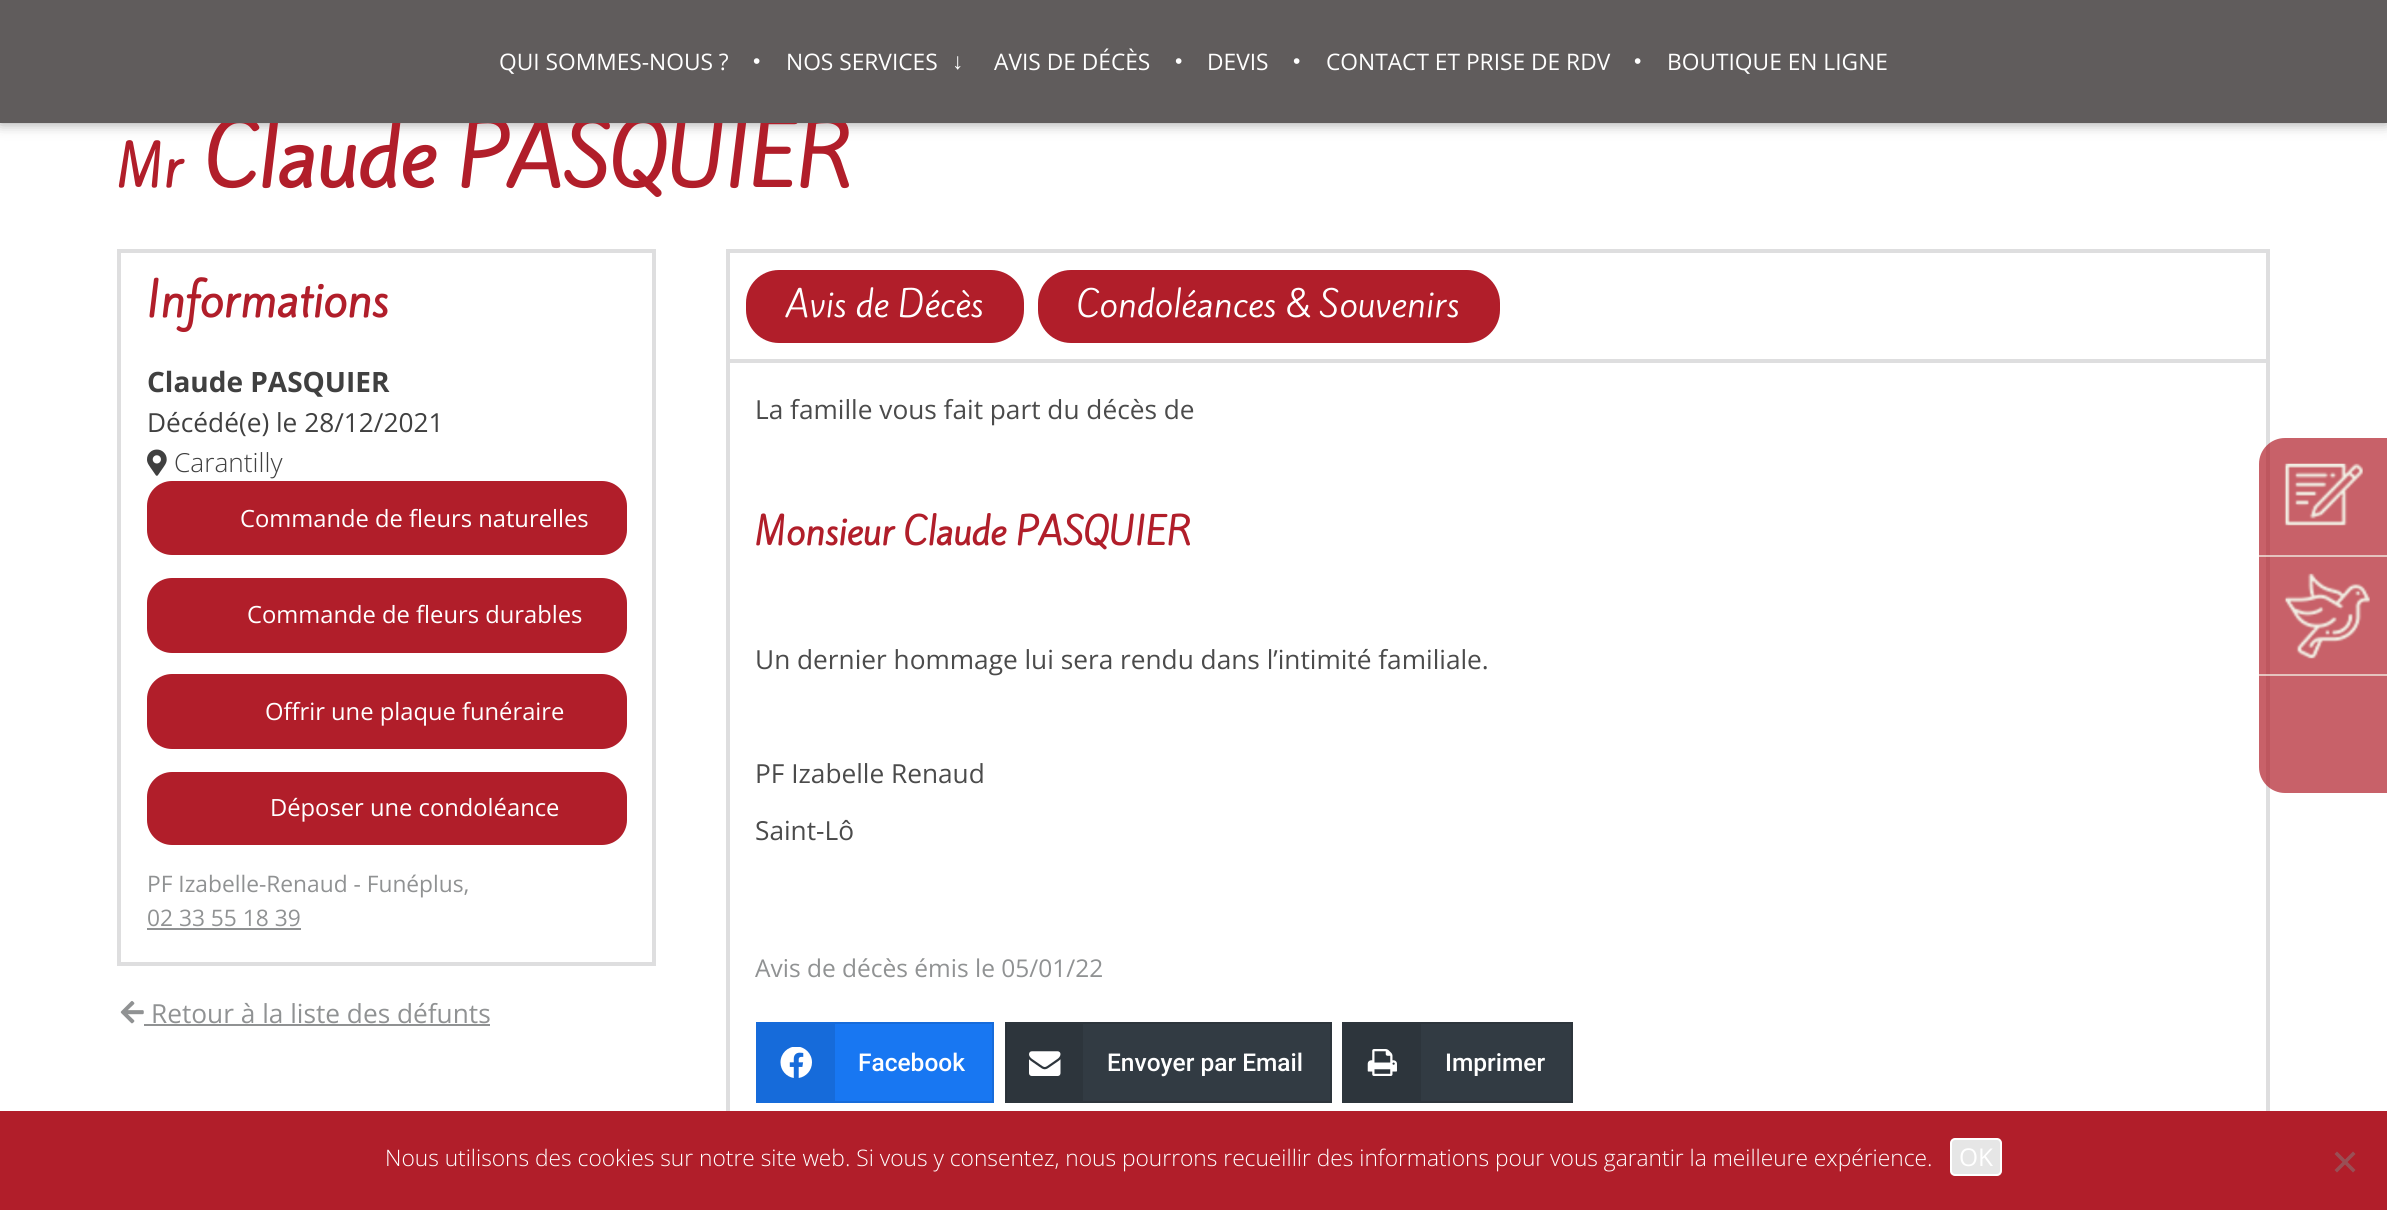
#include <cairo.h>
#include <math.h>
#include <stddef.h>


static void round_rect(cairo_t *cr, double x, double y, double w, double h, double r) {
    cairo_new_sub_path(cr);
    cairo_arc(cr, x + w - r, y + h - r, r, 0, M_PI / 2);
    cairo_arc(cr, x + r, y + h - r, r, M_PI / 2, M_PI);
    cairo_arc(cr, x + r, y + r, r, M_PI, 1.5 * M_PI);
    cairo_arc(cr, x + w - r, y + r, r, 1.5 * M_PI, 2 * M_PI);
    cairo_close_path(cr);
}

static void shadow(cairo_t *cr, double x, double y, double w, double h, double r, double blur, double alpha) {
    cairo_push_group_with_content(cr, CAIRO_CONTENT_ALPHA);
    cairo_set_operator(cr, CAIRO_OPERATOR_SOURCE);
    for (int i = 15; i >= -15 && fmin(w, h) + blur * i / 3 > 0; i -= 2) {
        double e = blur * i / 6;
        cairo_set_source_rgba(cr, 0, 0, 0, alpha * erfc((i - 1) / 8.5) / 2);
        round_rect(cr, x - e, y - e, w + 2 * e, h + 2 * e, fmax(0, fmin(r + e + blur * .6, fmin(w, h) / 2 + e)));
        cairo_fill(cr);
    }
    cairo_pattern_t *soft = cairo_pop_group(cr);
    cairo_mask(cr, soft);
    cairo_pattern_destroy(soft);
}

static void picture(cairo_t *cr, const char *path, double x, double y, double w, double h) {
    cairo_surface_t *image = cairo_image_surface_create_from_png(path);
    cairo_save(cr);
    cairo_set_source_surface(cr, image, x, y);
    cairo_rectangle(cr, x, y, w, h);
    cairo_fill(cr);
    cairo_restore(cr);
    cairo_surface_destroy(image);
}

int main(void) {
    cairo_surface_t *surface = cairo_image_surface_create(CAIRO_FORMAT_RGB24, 2387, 1210);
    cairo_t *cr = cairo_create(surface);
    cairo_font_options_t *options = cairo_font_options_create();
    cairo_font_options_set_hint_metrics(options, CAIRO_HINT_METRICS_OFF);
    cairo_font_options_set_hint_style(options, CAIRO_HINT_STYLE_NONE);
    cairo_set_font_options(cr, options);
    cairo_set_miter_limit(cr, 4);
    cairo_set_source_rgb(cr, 1, 1, 1);
    cairo_paint(cr);
    cairo_set_source_rgb(cr, 0, 0, 0);
    shadow(cr, 0, 0, 2387, 123, 0, 7, 0.4);
    cairo_select_font_face(cr, "Kite One", CAIRO_FONT_SLANT_NORMAL, CAIRO_FONT_WEIGHT_BOLD);
    cairo_set_font_size(cr, 78.75);
    cairo_set_source_rgb(cr, 0.694, 0.118, 0.165);
    cairo_move_to(cr, 205, 187);
    cairo_show_text(cr, "Claude PASQUIER");
    cairo_set_source_rgb(cr, 0.376, 0.361, 0.361);
    cairo_rectangle(cr, 0, 0, 2387, 123);
    cairo_fill(cr);
    cairo_select_font_face(cr, "Open Sans", CAIRO_FONT_SLANT_NORMAL, CAIRO_FONT_WEIGHT_NORMAL);
    cairo_set_font_size(cr, 22.75);
    cairo_set_source_rgb(cr, 1, 1, 1);
    cairo_move_to(cr, 499, 70);
    cairo_show_text(cr, "QUI SOMMES-NOUS ?");
    cairo_select_font_face(cr, "Liberation Sans", CAIRO_FONT_SLANT_NORMAL, CAIRO_FONT_WEIGHT_NORMAL);
    cairo_set_font_size(cr, 21);
    cairo_move_to(cr, 753, 68);
    cairo_show_text(cr, "•");
    cairo_select_font_face(cr, "Open Sans", CAIRO_FONT_SLANT_NORMAL, CAIRO_FONT_WEIGHT_NORMAL);
    cairo_set_font_size(cr, 22.75);
    cairo_move_to(cr, 786, 70);
    cairo_show_text(cr, "NOS SERVICES");
    cairo_select_font_face(cr, "Liberation Serif", CAIRO_FONT_SLANT_NORMAL, CAIRO_FONT_WEIGHT_NORMAL);
    cairo_move_to(cr, 952, 69);
    cairo_show_text(cr, "↓");
    cairo_select_font_face(cr, "Open Sans", CAIRO_FONT_SLANT_NORMAL, CAIRO_FONT_WEIGHT_NORMAL);
    cairo_move_to(cr, 994, 70);
    cairo_show_text(cr, "AVIS DE DÉCÈS");
    cairo_select_font_face(cr, "Liberation Sans", CAIRO_FONT_SLANT_NORMAL, CAIRO_FONT_WEIGHT_NORMAL);
    cairo_set_font_size(cr, 21);
    cairo_move_to(cr, 1175, 68);
    cairo_show_text(cr, "•");
    cairo_select_font_face(cr, "Open Sans", CAIRO_FONT_SLANT_NORMAL, CAIRO_FONT_WEIGHT_NORMAL);
    cairo_set_font_size(cr, 22.75);
    cairo_move_to(cr, 1207, 70);
    cairo_show_text(cr, "DEVIS");
    cairo_select_font_face(cr, "Liberation Sans", CAIRO_FONT_SLANT_NORMAL, CAIRO_FONT_WEIGHT_NORMAL);
    cairo_set_font_size(cr, 21);
    cairo_move_to(cr, 1293, 68);
    cairo_show_text(cr, "•");
    cairo_select_font_face(cr, "Open Sans", CAIRO_FONT_SLANT_NORMAL, CAIRO_FONT_WEIGHT_NORMAL);
    cairo_set_font_size(cr, 22.75);
    cairo_move_to(cr, 1326, 70);
    cairo_show_text(cr, "CONTACT ET PRISE DE RDV");
    cairo_select_font_face(cr, "Liberation Sans", CAIRO_FONT_SLANT_NORMAL, CAIRO_FONT_WEIGHT_NORMAL);
    cairo_set_font_size(cr, 21);
    cairo_move_to(cr, 1634, 68);
    cairo_show_text(cr, "•");
    cairo_select_font_face(cr, "Open Sans", CAIRO_FONT_SLANT_NORMAL, CAIRO_FONT_WEIGHT_NORMAL);
    cairo_set_font_size(cr, 22.75);
    cairo_move_to(cr, 1667, 70);
    cairo_show_text(cr, "BOUTIQUE EN LIGNE");
    cairo_select_font_face(cr, "Kite One", CAIRO_FONT_SLANT_NORMAL, CAIRO_FONT_WEIGHT_BOLD);
    cairo_set_font_size(cr, 52);
    cairo_set_source_rgb(cr, 0.694, 0.118, 0.165);
    cairo_move_to(cr, 117, 187);
    cairo_show_text(cr, "Mr");
    cairo_rectangle(cr, 119, 251, 535, 713);
    cairo_set_source_rgb(cr, 0.871, 0.871, 0.875);
    cairo_set_line_width(cr, 4);
    cairo_stroke(cr);
    cairo_set_font_size(cr, 43.75);
    cairo_set_source_rgb(cr, 0.694, 0.118, 0.165);
    cairo_move_to(cr, 147, 317);
    cairo_show_text(cr, "Informations");
    cairo_select_font_face(cr, "Open Sans", CAIRO_FONT_SLANT_NORMAL, CAIRO_FONT_WEIGHT_BOLD);
    cairo_set_font_size(cr, 28);
    cairo_set_source_rgb(cr, 0.251, 0.251, 0.251);
    cairo_move_to(cr, 147, 392);
    cairo_show_text(cr, "Claude PASQUIER");
    cairo_select_font_face(cr, "Open Sans", CAIRO_FONT_SLANT_NORMAL, CAIRO_FONT_WEIGHT_NORMAL);
    cairo_set_font_size(cr, 26.25);
    cairo_move_to(cr, 147, 432);
    cairo_show_text(cr, "Décédé(e) le 28/12/2021");
    picture(cr, "img1.png", 147, 449, 20, 27);
    cairo_select_font_face(cr, "Open Sans Light", CAIRO_FONT_SLANT_NORMAL, CAIRO_FONT_WEIGHT_NORMAL);
    cairo_move_to(cr, 174, 472);
    cairo_show_text(cr, "Carantilly");
    cairo_set_source_rgb(cr, 0.694, 0.118, 0.165);
    round_rect(cr, 147, 481, 480, 74, 25);
    cairo_fill(cr);
    cairo_select_font_face(cr, "Open Sans", CAIRO_FONT_SLANT_NORMAL, CAIRO_FONT_WEIGHT_NORMAL);
    cairo_set_font_size(cr, 23.75);
    cairo_set_source_rgb(cr, 1, 1, 1);
    cairo_move_to(cr, 240, 527);
    cairo_show_text(cr, "Commande de fleurs naturelles");
    cairo_set_source_rgb(cr, 0.694, 0.118, 0.165);
    round_rect(cr, 147, 578, 480, 75, 25);
    cairo_fill(cr);
    cairo_set_source_rgb(cr, 1, 1, 1);
    cairo_move_to(cr, 247, 623);
    cairo_show_text(cr, "Commande de fleurs durables");
    cairo_set_source_rgb(cr, 0.694, 0.118, 0.165);
    round_rect(cr, 147, 674, 480, 75, 25);
    cairo_fill(cr);
    cairo_set_source_rgb(cr, 1, 1, 1);
    cairo_move_to(cr, 265, 720);
    cairo_show_text(cr, "Offrir une plaque funéraire");
    cairo_set_source_rgb(cr, 0.694, 0.118, 0.165);
    round_rect(cr, 147, 772, 480, 73, 25);
    cairo_fill(cr);
    cairo_set_source_rgb(cr, 1, 1, 1);
    cairo_move_to(cr, 270, 816);
    cairo_show_text(cr, "Déposer une condoléance");
    cairo_set_font_size(cr, 22.75);
    cairo_set_source_rgb(cr, 0.565, 0.573, 0.576);
    cairo_move_to(cr, 147, 892);
    cairo_show_text(cr, "PF Izabelle-Renaud - Funéplus,");
    cairo_move_to(cr, 147, 926);
    cairo_show_text(cr, "02 33 55 18 39");
    cairo_rectangle(cr, 147, 928, 154, 2);
    cairo_fill(cr);
    picture(cr, "img2.png", 120, 1001, 24, 23);
    cairo_set_font_size(cr, 26.25);
    cairo_move_to(cr, 151, 1023);
    cairo_show_text(cr, "Retour à la liste des défunts");
    cairo_rectangle(cr, 144, 1024, 346, 2);
    cairo_fill(cr);
    cairo_rectangle(cr, 728, 251, 1540, 881);
    cairo_set_source_rgb(cr, 0.871, 0.871, 0.875);
    cairo_stroke(cr);
    cairo_rectangle(cr, 730, 359, 1536, 4);
    cairo_fill(cr);
    cairo_set_source_rgb(cr, 0.694, 0.118, 0.165);
    round_rect(cr, 746, 270, 278, 73, 33);
    cairo_fill(cr);
    cairo_select_font_face(cr, "Kite One", CAIRO_FONT_SLANT_NORMAL, CAIRO_FONT_WEIGHT_NORMAL);
    cairo_set_font_size(cr, 33.6);
    cairo_set_source_rgb(cr, 1, 1, 1);
    cairo_move_to(cr, 786, 317);
    cairo_show_text(cr, "Avis de Décès");
    cairo_set_source_rgb(cr, 0.694, 0.118, 0.165);
    round_rect(cr, 1038, 270, 462, 73, 33);
    cairo_fill(cr);
    cairo_set_source_rgb(cr, 1, 1, 1);
    cairo_move_to(cr, 1077, 317);
    cairo_show_text(cr, "Condoléances & Souvenirs");
    cairo_select_font_face(cr, "Open Sans", CAIRO_FONT_SLANT_NORMAL, CAIRO_FONT_WEIGHT_NORMAL);
    cairo_set_font_size(cr, 26.25);
    cairo_set_source_rgb(cr, 0.294, 0.294, 0.294);
    cairo_move_to(cr, 755, 419);
    cairo_show_text(cr, "La famille vous fait part du décès de");
    cairo_select_font_face(cr, "Kite One", CAIRO_FONT_SLANT_NORMAL, CAIRO_FONT_WEIGHT_BOLD);
    cairo_set_font_size(cr, 35);
    cairo_set_source_rgb(cr, 0.694, 0.118, 0.165);
    cairo_move_to(cr, 755, 545);
    cairo_show_text(cr, "Monsieur Claude PASQUIER");
    cairo_select_font_face(cr, "Open Sans", CAIRO_FONT_SLANT_NORMAL, CAIRO_FONT_WEIGHT_NORMAL);
    cairo_set_font_size(cr, 26.25);
    cairo_set_source_rgb(cr, 0.294, 0.294, 0.294);
    cairo_move_to(cr, 755, 669);
    cairo_show_text(cr, "Un dernier hommage lui sera rendu dans l’intimité familiale.");
    cairo_move_to(cr, 755, 783);
    cairo_show_text(cr, "PF Izabelle Renaud");
    cairo_move_to(cr, 755, 840);
    cairo_show_text(cr, "Saint-Lô");
    cairo_set_font_size(cr, 24.5);
    cairo_set_source_rgb(cr, 0.565, 0.573, 0.576);
    cairo_move_to(cr, 755, 977);
    cairo_show_text(cr, "Avis de décès émis le 05/01/22");
    cairo_set_source_rgb(cr, 0.094, 0.467, 0.949);
    cairo_rectangle(cr, 835, 1024, 157, 77);
    cairo_fill(cr);
    cairo_rectangle(cr, 757, 1023, 236, 79);
    cairo_set_source_rgb(cr, 0.086, 0.42, 0.855);
    cairo_set_line_width(cr, 2);
    cairo_stroke(cr);
    cairo_rectangle(cr, 758, 1024, 77, 77);
    cairo_fill(cr);
    picture(cr, "img3.png", 780, 1047, 32, 31);
    cairo_select_font_face(cr, "Roboto Medium", CAIRO_FONT_SLANT_NORMAL, CAIRO_FONT_WEIGHT_NORMAL);
    cairo_set_source_rgb(cr, 1, 1, 1);
    cairo_move_to(cr, 858, 1071);
    cairo_show_text(cr, "Facebook");
    cairo_set_source_rgb(cr, 0.196, 0.231, 0.263);
    cairo_rectangle(cr, 1006, 1023, 325, 79);
    cairo_fill_preserve(cr);
    cairo_set_source_rgb(cr, 0.176, 0.208, 0.235);
    cairo_stroke(cr);
    cairo_set_source_rgba(cr, 0, 0, 0, 0.1);
    cairo_rectangle(cr, 1006, 1024, 77, 77);
    cairo_fill(cr);
    picture(cr, "img4.png", 1029, 1051, 32, 25);
    cairo_set_source_rgb(cr, 1, 1, 1);
    cairo_move_to(cr, 1107, 1071);
    cairo_show_text(cr, "Envoyer par Email");
    cairo_set_source_rgb(cr, 0.196, 0.231, 0.263);
    cairo_rectangle(cr, 1421, 1024, 150, 77);
    cairo_fill(cr);
    cairo_rectangle(cr, 1343, 1023, 229, 79);
    cairo_set_source_rgb(cr, 0.176, 0.208, 0.235);
    cairo_stroke(cr);
    cairo_rectangle(cr, 1344, 1024, 77, 77);
    cairo_fill(cr);
    picture(cr, "img5.png", 1367, 1049, 30, 27);
    cairo_set_source_rgb(cr, 1, 1, 1);
    cairo_move_to(cr, 1445, 1071);
    cairo_show_text(cr, "Imprimer");
    cairo_set_source_rgba(cr, 0.694, 0.118, 0.165, 0.7);
    round_rect(cr, 2259, 438, 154, 355, 26);
    cairo_fill(cr);
    cairo_set_source_rgba(cr, 0.945, 0.937, 0.898, 0.7);
    cairo_rectangle(cr, 2259, 555, 128, 2);
    cairo_fill(cr);
    picture(cr, "img6.png", 2284, 463, 79, 63);
    cairo_rectangle(cr, 2259, 674, 128, 2);
    cairo_fill(cr);
    picture(cr, "img7.png", 2284, 573, 86, 86);
    cairo_set_source_rgb(cr, 0.694, 0.118, 0.165);
    cairo_rectangle(cr, 0, 1111, 2387, 99);
    cairo_fill(cr);
    cairo_select_font_face(cr, "Open Sans Light", CAIRO_FONT_SLANT_NORMAL, CAIRO_FONT_WEIGHT_NORMAL);
    cairo_set_font_size(cr, 22.75);
    cairo_set_source_rgb(cr, 1, 1, 1);
    cairo_move_to(cr, 385, 1166);
    cairo_show_text(cr, "Nous utilisons des cookies sur notre site web. Si vous y consentez, nous pourrons recueillir des informations pour vous garantir la meilleure expérience.");
    cairo_set_source_rgb(cr, 0.902, 0.902, 0.902);
    round_rect(cr, 1951, 1139, 50, 36, 4);
    cairo_fill_preserve(cr);
    cairo_set_source_rgb(cr, 1, 1, 1);
    cairo_stroke(cr);
    cairo_select_font_face(cr, "Open Sans", CAIRO_FONT_SLANT_NORMAL, CAIRO_FONT_WEIGHT_NORMAL);
    cairo_set_font_size(cr, 24.5);
    cairo_move_to(cr, 1959, 1166);
    cairo_show_text(cr, "OK");
    cairo_set_source_rgb(cr, 0.6, 0.31, 0.333);
    cairo_new_path(cr);
    cairo_move_to(cr, 2353, 1151.5);
    cairo_line_to(cr, 2355.5, 1154);
    cairo_line_to(cr, 2337, 1172.5);
    cairo_line_to(cr, 2334.5, 1170);
    cairo_close_path(cr);
    cairo_fill(cr);
    cairo_new_path(cr);
    cairo_move_to(cr, 2334.5, 1154);
    cairo_line_to(cr, 2337, 1151.5);
    cairo_line_to(cr, 2355.5, 1170);
    cairo_line_to(cr, 2353, 1172.5);
    cairo_close_path(cr);
    cairo_fill(cr);
    cairo_surface_write_to_png(surface, "page.png");
    cairo_font_options_destroy(options);
    cairo_destroy(cr);
    cairo_surface_destroy(surface);
    return 0;
}
